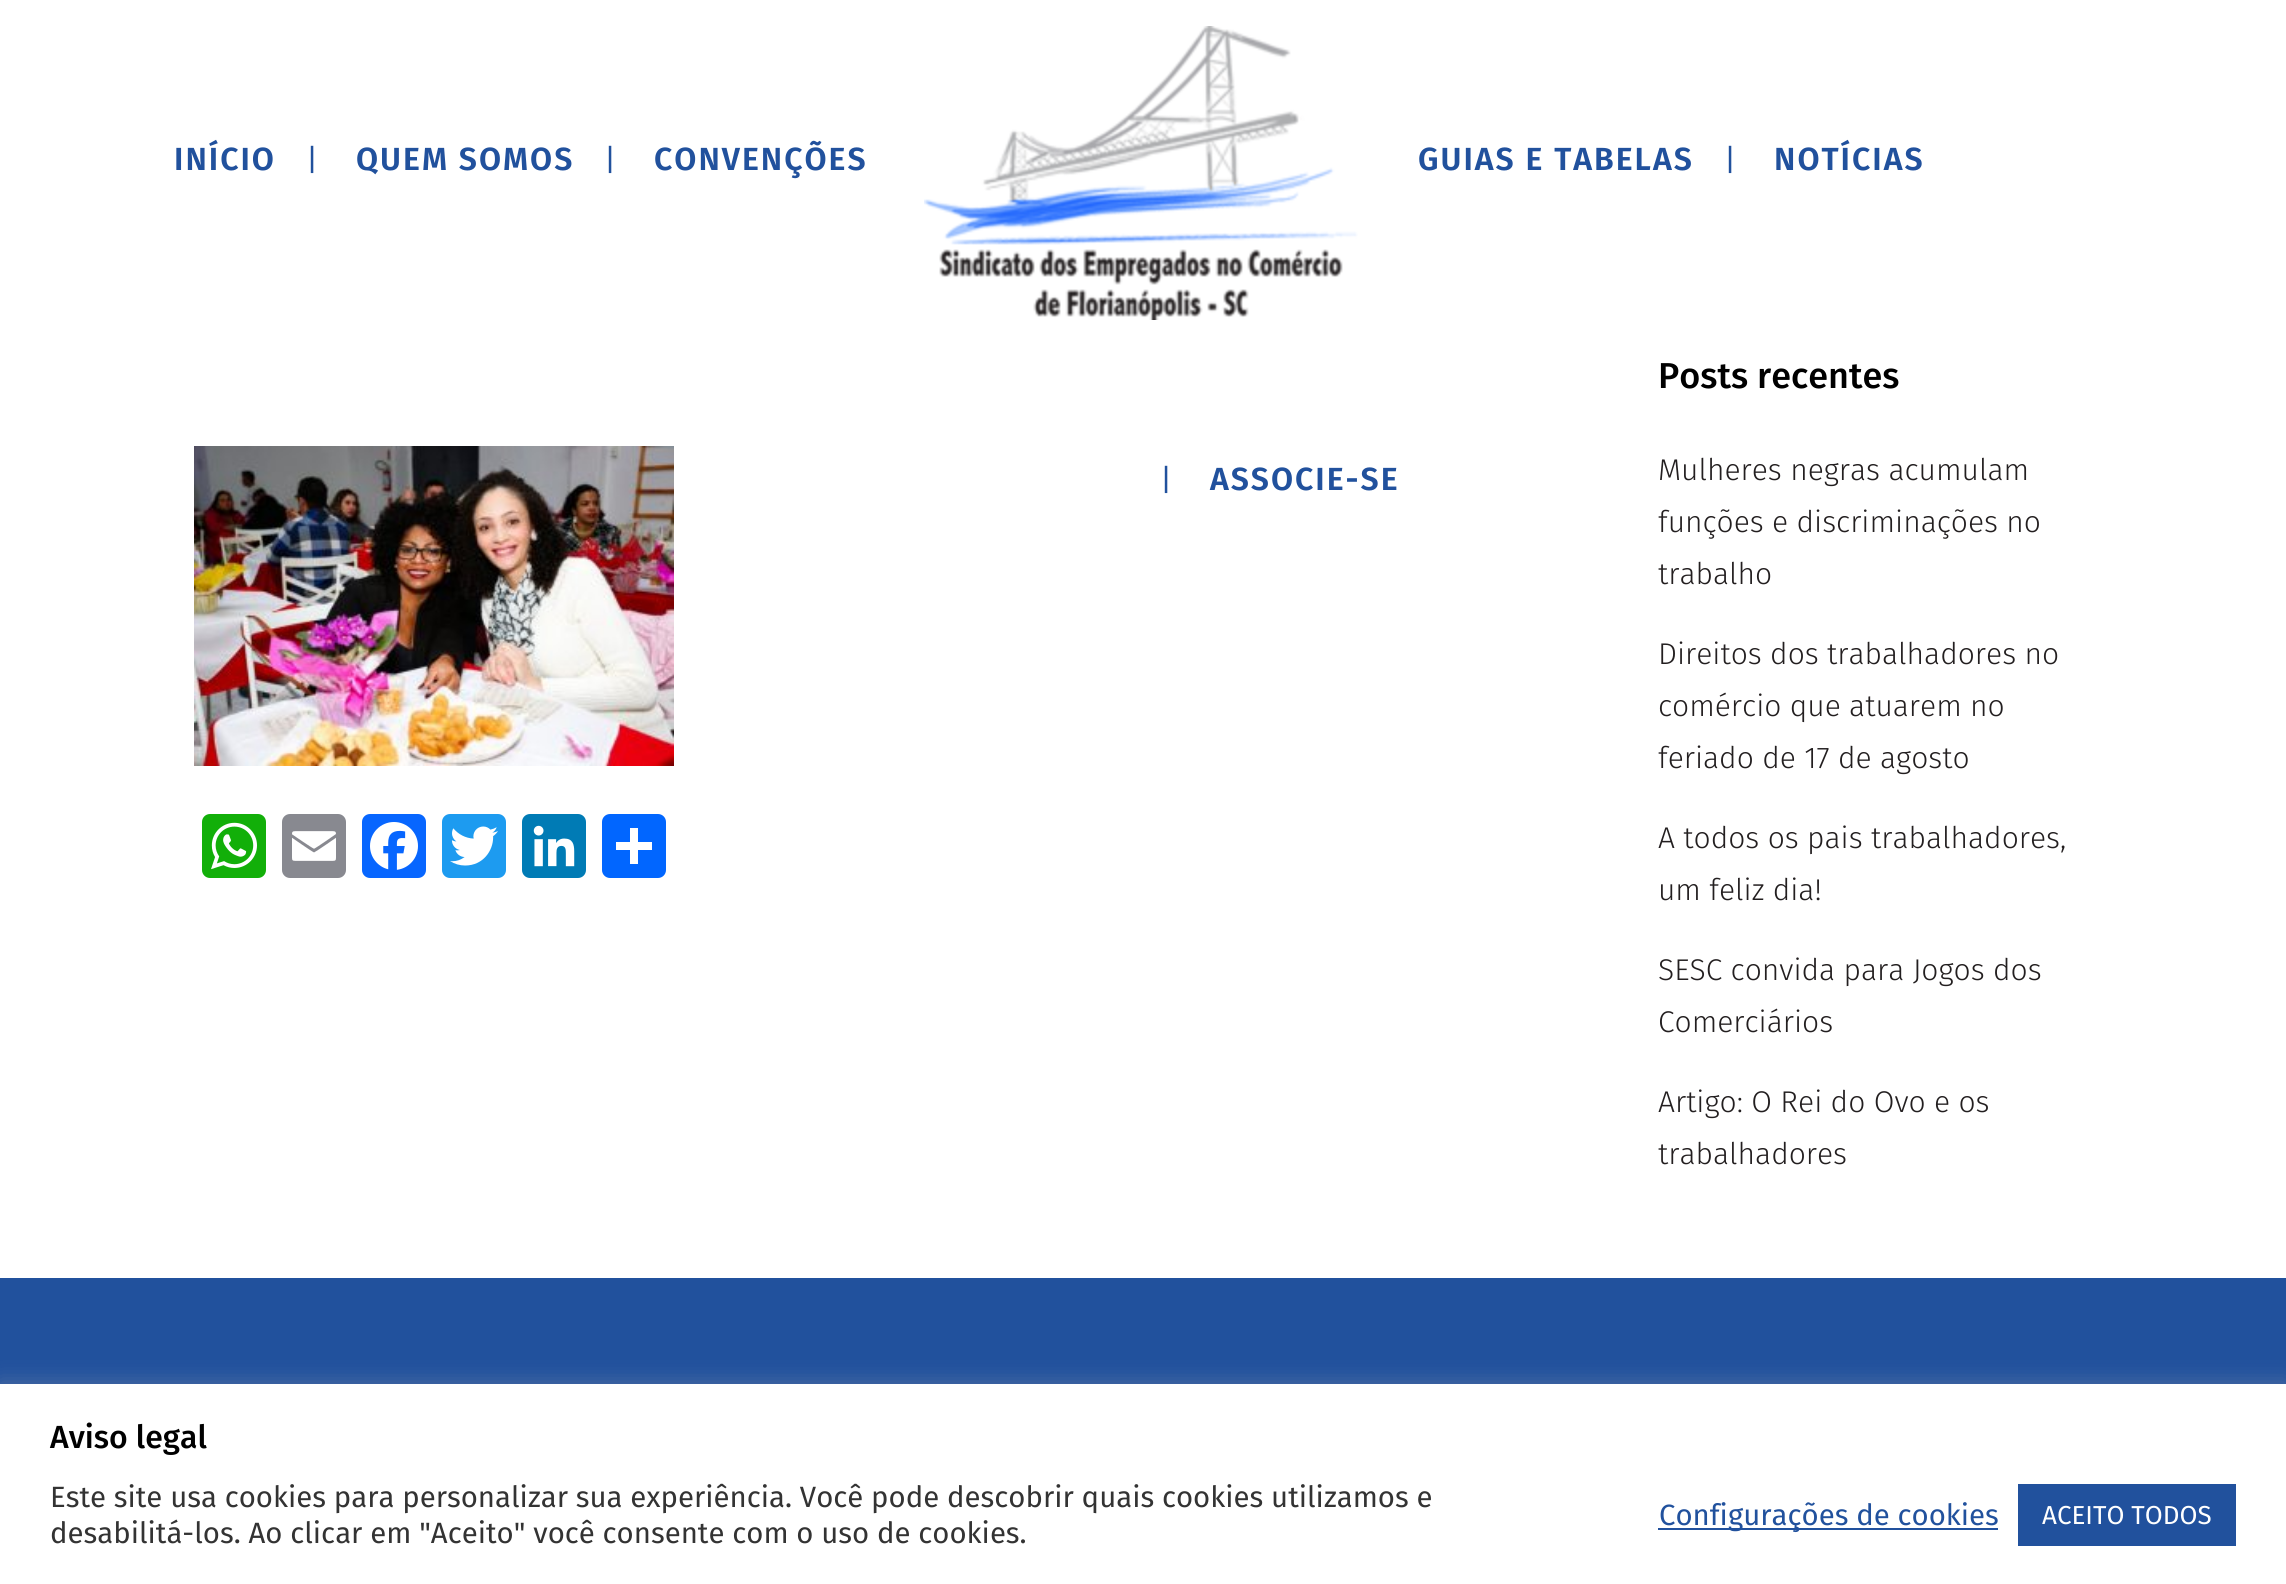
#include <cairo.h>
#include <math.h>
#include <stddef.h>


static void spaced_text(cairo_t *cr, double x, double y, const char *s, double letter, double word) {
    cairo_move_to(cr, x, y);
    while (*s) {
        char ch[5] = {0};
        int n = 0;
        do ch[n++] = *s++; while ((*s & 0xC0) == 0x80);
        cairo_show_text(cr, ch);
        cairo_rel_move_to(cr, letter + word * (*ch == ' '), 0);
    }
}

static void round_rect(cairo_t *cr, double x, double y, double w, double h, double r) {
    cairo_new_sub_path(cr);
    cairo_arc(cr, x + w - r, y + h - r, r, 0, M_PI / 2);
    cairo_arc(cr, x + r, y + h - r, r, M_PI / 2, M_PI);
    cairo_arc(cr, x + r, y + r, r, M_PI, 1.5 * M_PI);
    cairo_arc(cr, x + w - r, y + r, r, 1.5 * M_PI, 2 * M_PI);
    cairo_close_path(cr);
}

static void shadow(cairo_t *cr, double x, double y, double w, double h, double r, double blur, double alpha) {
    cairo_push_group_with_content(cr, CAIRO_CONTENT_ALPHA);
    cairo_set_operator(cr, CAIRO_OPERATOR_SOURCE);
    for (int i = 15; i >= -15 && fmin(w, h) + blur * i / 3 > 0; i -= 2) {
        double e = blur * i / 6;
        cairo_set_source_rgba(cr, 0, 0, 0, alpha * erfc((i - 1) / 8.5) / 2);
        round_rect(cr, x - e, y - e, w + 2 * e, h + 2 * e, fmax(0, fmin(r + e + blur * .6, fmin(w, h) / 2 + e)));
        cairo_fill(cr);
    }
    cairo_pattern_t *soft = cairo_pop_group(cr);
    cairo_mask(cr, soft);
    cairo_pattern_destroy(soft);
}

static void picture(cairo_t *cr, const char *path, double x, double y, double w, double h) {
    cairo_surface_t *image = cairo_image_surface_create_from_png(path);
    cairo_save(cr);
    cairo_set_source_surface(cr, image, x, y);
    cairo_rectangle(cr, x, y, w, h);
    cairo_fill(cr);
    cairo_restore(cr);
    cairo_surface_destroy(image);
}

int main(void) {
    cairo_surface_t *surface = cairo_image_surface_create(CAIRO_FORMAT_RGB24, 2286, 1584);
    cairo_t *cr = cairo_create(surface);
    cairo_font_options_t *options = cairo_font_options_create();
    cairo_font_options_set_hint_metrics(options, CAIRO_HINT_METRICS_OFF);
    cairo_font_options_set_hint_style(options, CAIRO_HINT_STYLE_NONE);
    cairo_set_font_options(cr, options);
    cairo_set_miter_limit(cr, 4);
    cairo_set_source_rgb(cr, 1, 1, 1);
    cairo_paint(cr);
    cairo_select_font_face(cr, "Fira Sans SemiBold", CAIRO_FONT_SLANT_NORMAL, CAIRO_FONT_WEIGHT_NORMAL);
    cairo_set_font_size(cr, 32);
    cairo_set_source_rgb(cr, 0.129, 0.318, 0.616);
    spaced_text(cr, 174, 170, "INÍCIO", 2, 0);
    cairo_select_font_face(cr, "Fira Sans", CAIRO_FONT_SLANT_NORMAL, CAIRO_FONT_WEIGHT_NORMAL);
    cairo_set_font_size(cr, 30);
    cairo_move_to(cr, 306, 170);
    cairo_show_text(cr, "|");
    cairo_select_font_face(cr, "Fira Sans SemiBold", CAIRO_FONT_SLANT_NORMAL, CAIRO_FONT_WEIGHT_NORMAL);
    cairo_set_font_size(cr, 32);
    spaced_text(cr, 356, 170, "QUEM SOMOS", 2, 0);
    cairo_select_font_face(cr, "Fira Sans", CAIRO_FONT_SLANT_NORMAL, CAIRO_FONT_WEIGHT_NORMAL);
    cairo_set_font_size(cr, 30);
    cairo_move_to(cr, 604, 170);
    cairo_show_text(cr, "|");
    cairo_select_font_face(cr, "Fira Sans SemiBold", CAIRO_FONT_SLANT_NORMAL, CAIRO_FONT_WEIGHT_NORMAL);
    cairo_set_font_size(cr, 32);
    spaced_text(cr, 654, 170, "CONVENÇÕES", 2, 0);
    picture(cr, "img1.png", 924, 26, 434, 294);
    spaced_text(cr, 1418, 170, "GUIAS E TABELAS", 2, 0);
    cairo_select_font_face(cr, "Fira Sans", CAIRO_FONT_SLANT_NORMAL, CAIRO_FONT_WEIGHT_NORMAL);
    cairo_set_font_size(cr, 30);
    cairo_move_to(cr, 1724, 170);
    cairo_show_text(cr, "|");
    cairo_select_font_face(cr, "Fira Sans SemiBold", CAIRO_FONT_SLANT_NORMAL, CAIRO_FONT_WEIGHT_NORMAL);
    cairo_set_font_size(cr, 32);
    spaced_text(cr, 1774, 170, "NOTÍCIAS", 2, 0);
    cairo_select_font_face(cr, "Fira Sans", CAIRO_FONT_SLANT_NORMAL, CAIRO_FONT_WEIGHT_NORMAL);
    cairo_set_font_size(cr, 30);
    cairo_move_to(cr, 1160, 490);
    cairo_show_text(cr, "|");
    cairo_select_font_face(cr, "Fira Sans SemiBold", CAIRO_FONT_SLANT_NORMAL, CAIRO_FONT_WEIGHT_NORMAL);
    cairo_set_font_size(cr, 32);
    spaced_text(cr, 1210, 490, "ASSOCIE-SE", 2, 0);
    picture(cr, "img2.png", 194, 446, 480, 320);
    cairo_set_source_rgb(cr, 0.071, 0.686, 0.039);
    round_rect(cr, 202, 814, 64, 64, 8);
    cairo_fill(cr);
    picture(cr, "img3.png", 211, 822, 46, 48);
    cairo_set_source_rgb(cr, 0.533, 0.537, 0.565);
    round_rect(cr, 282, 814, 64, 64, 8);
    cairo_fill(cr);
    picture(cr, "img4.png", 292, 831, 44, 30);
    cairo_set_source_rgb(cr, 0.031, 0.4, 1);
    round_rect(cr, 362, 814, 64, 64, 8);
    cairo_fill(cr);
    picture(cr, "img5.png", 370, 822, 48, 48);
    cairo_set_source_rgb(cr, 0.114, 0.608, 0.941);
    round_rect(cr, 442, 814, 64, 64, 8);
    cairo_fill(cr);
    picture(cr, "img6.png", 450, 826, 48, 40);
    cairo_set_source_rgb(cr, 0, 0.482, 0.71);
    round_rect(cr, 522, 814, 64, 64, 8);
    cairo_fill(cr);
    picture(cr, "img7.png", 533, 825, 42, 42);
    cairo_set_source_rgb(cr, 0.004, 0.4, 1);
    round_rect(cr, 602, 814, 64, 64, 8);
    cairo_fill(cr);
    cairo_set_source_rgb(cr, 1, 1, 1);
    cairo_rectangle(cr, 630, 828, 8, 36);
    cairo_fill(cr);
    cairo_rectangle(cr, 616, 842, 36, 8);
    cairo_fill(cr);
    cairo_select_font_face(cr, "Fira Sans Medium", CAIRO_FONT_SLANT_NORMAL, CAIRO_FONT_WEIGHT_NORMAL);
    cairo_set_font_size(cr, 36);
    cairo_set_source_rgb(cr, 0, 0, 0);
    cairo_move_to(cr, 1658, 388);
    cairo_show_text(cr, "Posts recentes");
    cairo_select_font_face(cr, "Fira Sans Light", CAIRO_FONT_SLANT_NORMAL, CAIRO_FONT_WEIGHT_NORMAL);
    cairo_set_font_size(cr, 30);
    cairo_set_source_rgb(cr, 0.137, 0.122, 0.125);
    cairo_move_to(cr, 1658, 480);
    cairo_show_text(cr, "Mulheres negras acumulam");
    cairo_move_to(cr, 1658, 532);
    cairo_show_text(cr, "funções e discriminações no");
    cairo_move_to(cr, 1658, 584);
    cairo_show_text(cr, "trabalho");
    cairo_move_to(cr, 1658, 664);
    cairo_show_text(cr, "Direitos dos trabalhadores no");
    cairo_move_to(cr, 1658, 716);
    cairo_show_text(cr, "comércio que atuarem no");
    cairo_move_to(cr, 1658, 768);
    cairo_show_text(cr, "feriado de 17 de agosto");
    cairo_move_to(cr, 1658, 848);
    cairo_show_text(cr, "A todos os pais trabalhadores,");
    cairo_move_to(cr, 1658, 900);
    cairo_show_text(cr, "um feliz dia!");
    cairo_move_to(cr, 1658, 980);
    cairo_show_text(cr, "SESC convida para Jogos dos");
    cairo_move_to(cr, 1658, 1032);
    cairo_show_text(cr, "Comerciários");
    cairo_move_to(cr, 1658, 1112);
    cairo_show_text(cr, "Artigo: O Rei do Ovo e os");
    cairo_move_to(cr, 1658, 1164);
    cairo_show_text(cr, "trabalhadores");
    cairo_set_source_rgb(cr, 0.129, 0.318, 0.616);
    cairo_rectangle(cr, 0, 1278, 2286, 106);
    cairo_fill(cr);
    cairo_set_source_rgb(cr, 0.675, 0.671, 0.671);
    shadow(cr, 0, 1382, 2286, 200, 0, 10, 0.3);
    cairo_set_source_rgb(cr, 1, 1, 1);
    cairo_rectangle(cr, 0, 1384, 2286, 200);
    cairo_fill(cr);
    cairo_select_font_face(cr, "Fira Sans Medium", CAIRO_FONT_SLANT_NORMAL, CAIRO_FONT_WEIGHT_NORMAL);
    cairo_set_font_size(cr, 32);
    cairo_set_source_rgb(cr, 0, 0, 0);
    cairo_move_to(cr, 50, 1448);
    cairo_show_text(cr, "Aviso legal");
    cairo_select_font_face(cr, "Fira Sans", CAIRO_FONT_SLANT_NORMAL, CAIRO_FONT_WEIGHT_NORMAL);
    cairo_set_font_size(cr, 29.35);
    cairo_set_source_rgb(cr, 0.2, 0.2, 0.2);
    cairo_move_to(cr, 50, 1507);
    cairo_show_text(cr, "Este site usa cookies para personalizar sua experiência. Você pode descobrir quais cookies utilizamos e");
    cairo_move_to(cr, 50, 1543);
    cairo_show_text(cr, "desabilitá-los. Ao clicar em \"Aceito\" você consente com o uso de cookies.");
    cairo_set_source_rgb(cr, 0.129, 0.318, 0.616);
    cairo_rectangle(cr, 1658, 1528, 340, 2);
    cairo_fill(cr);
    cairo_move_to(cr, 1659, 1525);
    cairo_show_text(cr, "Configurações de cookies");
    cairo_rectangle(cr, 2018, 1484, 218, 62);
    cairo_fill(cr);
    cairo_set_font_size(cr, 26);
    cairo_set_source_rgb(cr, 1, 1, 1);
    cairo_move_to(cr, 2042, 1524);
    cairo_show_text(cr, "ACEITO TODOS");
    cairo_surface_write_to_png(surface, "page.png");
    cairo_font_options_destroy(options);
    cairo_destroy(cr);
    cairo_surface_destroy(surface);
    return 0;
}
